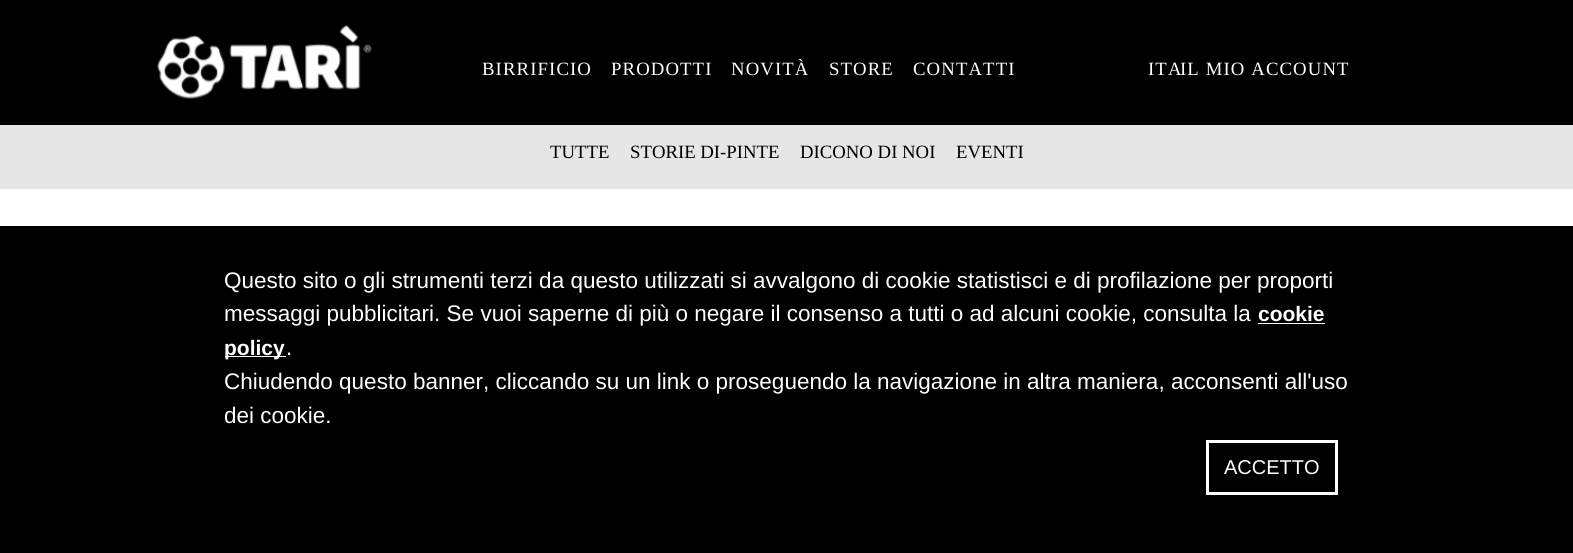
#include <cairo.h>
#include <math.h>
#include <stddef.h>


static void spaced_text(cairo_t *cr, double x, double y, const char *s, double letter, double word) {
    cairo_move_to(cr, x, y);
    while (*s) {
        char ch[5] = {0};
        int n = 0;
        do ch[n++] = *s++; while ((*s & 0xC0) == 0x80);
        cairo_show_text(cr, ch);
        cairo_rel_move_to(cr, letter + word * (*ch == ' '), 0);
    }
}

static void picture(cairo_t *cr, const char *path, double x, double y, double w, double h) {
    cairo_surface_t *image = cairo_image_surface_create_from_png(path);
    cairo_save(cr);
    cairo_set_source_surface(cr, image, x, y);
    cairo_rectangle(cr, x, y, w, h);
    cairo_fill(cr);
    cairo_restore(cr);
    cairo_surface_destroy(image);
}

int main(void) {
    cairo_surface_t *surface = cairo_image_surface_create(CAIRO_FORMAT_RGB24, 1573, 553);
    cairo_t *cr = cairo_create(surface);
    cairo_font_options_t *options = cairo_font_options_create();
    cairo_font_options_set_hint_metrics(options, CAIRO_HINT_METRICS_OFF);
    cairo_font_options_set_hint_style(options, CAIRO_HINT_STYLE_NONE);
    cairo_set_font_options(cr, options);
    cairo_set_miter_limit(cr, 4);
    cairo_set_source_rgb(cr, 1, 1, 1);
    cairo_paint(cr);
    cairo_set_source_rgb(cr, 0, 0, 0);
    cairo_rectangle(cr, 0, 0, 1573, 125);
    cairo_fill(cr);
    picture(cr, "img1.png", 157, 25, 215, 74);
    cairo_select_font_face(cr, "Liberation Serif", CAIRO_FONT_SLANT_NORMAL, CAIRO_FONT_WEIGHT_NORMAL);
    cairo_set_font_size(cr, 18.75);
    cairo_set_source_rgb(cr, 1, 1, 1);
    spaced_text(cr, 482, 75, "BIRRIFICIO", 1.1, 0);
    spaced_text(cr, 611, 75, "PRODOTTI", 1.1, 0);
    spaced_text(cr, 731, 75, "NOVITÀ", 1.1, 0);
    spaced_text(cr, 829, 75, "STORE", 1.1, 0);
    spaced_text(cr, 913, 75, "CONTATTI", 1.1, 0);
    spaced_text(cr, 1148, 75, "ITA", 1.1, 0);
    spaced_text(cr, 1180, 75, "IL MIO ACCOUNT", 1.1, 0);
    cairo_set_source_rgb(cr, 0.902, 0.902, 0.902);
    cairo_rectangle(cr, 0, 125, 1573, 64);
    cairo_fill(cr);
    cairo_set_source_rgb(cr, 0, 0, 0);
    cairo_move_to(cr, 550, 158);
    cairo_show_text(cr, "TUTTE");
    cairo_move_to(cr, 630, 158);
    cairo_show_text(cr, "STORIE DI-PINTE");
    cairo_move_to(cr, 800, 158);
    cairo_show_text(cr, "DICONO DI NOI");
    cairo_move_to(cr, 956, 158);
    cairo_show_text(cr, "EVENTI");
    cairo_rectangle(cr, 0, 226, 1573, 327);
    cairo_fill(cr);
    cairo_select_font_face(cr, "Liberation Sans", CAIRO_FONT_SLANT_NORMAL, CAIRO_FONT_WEIGHT_NORMAL);
    cairo_set_font_size(cr, 22.5);
    cairo_set_source_rgb(cr, 1, 1, 1);
    cairo_move_to(cr, 224, 288);
    cairo_show_text(cr, "Questo sito o gli strumenti terzi da questo utilizzati si avvalgono di cookie statistisci e di profilazione per proporti");
    cairo_move_to(cr, 224, 321);
    cairo_show_text(cr, "messaggi pubblicitari. Se vuoi saperne di più o negare il consenso a tutti o ad alcuni cookie, consulta la");
    cairo_select_font_face(cr, "Liberation Sans", CAIRO_FONT_SLANT_NORMAL, CAIRO_FONT_WEIGHT_BOLD);
    cairo_set_font_size(cr, 21);
    cairo_move_to(cr, 1258, 321);
    cairo_show_text(cr, "cookie");
    cairo_rectangle(cr, 1258, 323, 67, 1);
    cairo_fill(cr);
    cairo_rectangle(cr, 225, 356, 61, 1);
    cairo_fill(cr);
    cairo_move_to(cr, 224, 355);
    cairo_show_text(cr, "policy");
    cairo_select_font_face(cr, "Liberation Sans", CAIRO_FONT_SLANT_NORMAL, CAIRO_FONT_WEIGHT_NORMAL);
    cairo_set_font_size(cr, 22.5);
    cairo_move_to(cr, 286, 355);
    cairo_show_text(cr, ".");
    cairo_move_to(cr, 224, 389);
    cairo_show_text(cr, "Chiudendo questo banner, cliccando su un link o proseguendo la navigazione in altra maniera, acconsenti all'uso");
    cairo_move_to(cr, 224, 423);
    cairo_show_text(cr, "dei cookie.");
    cairo_rectangle(cr, 1207.5, 441.5, 129, 52);
    cairo_set_line_width(cr, 3);
    cairo_stroke(cr);
    cairo_set_font_size(cr, 20);
    cairo_move_to(cr, 1224, 474);
    cairo_show_text(cr, "ACCETTO");
    cairo_surface_write_to_png(surface, "page.png");
    cairo_font_options_destroy(options);
    cairo_destroy(cr);
    cairo_surface_destroy(surface);
    return 0;
}
